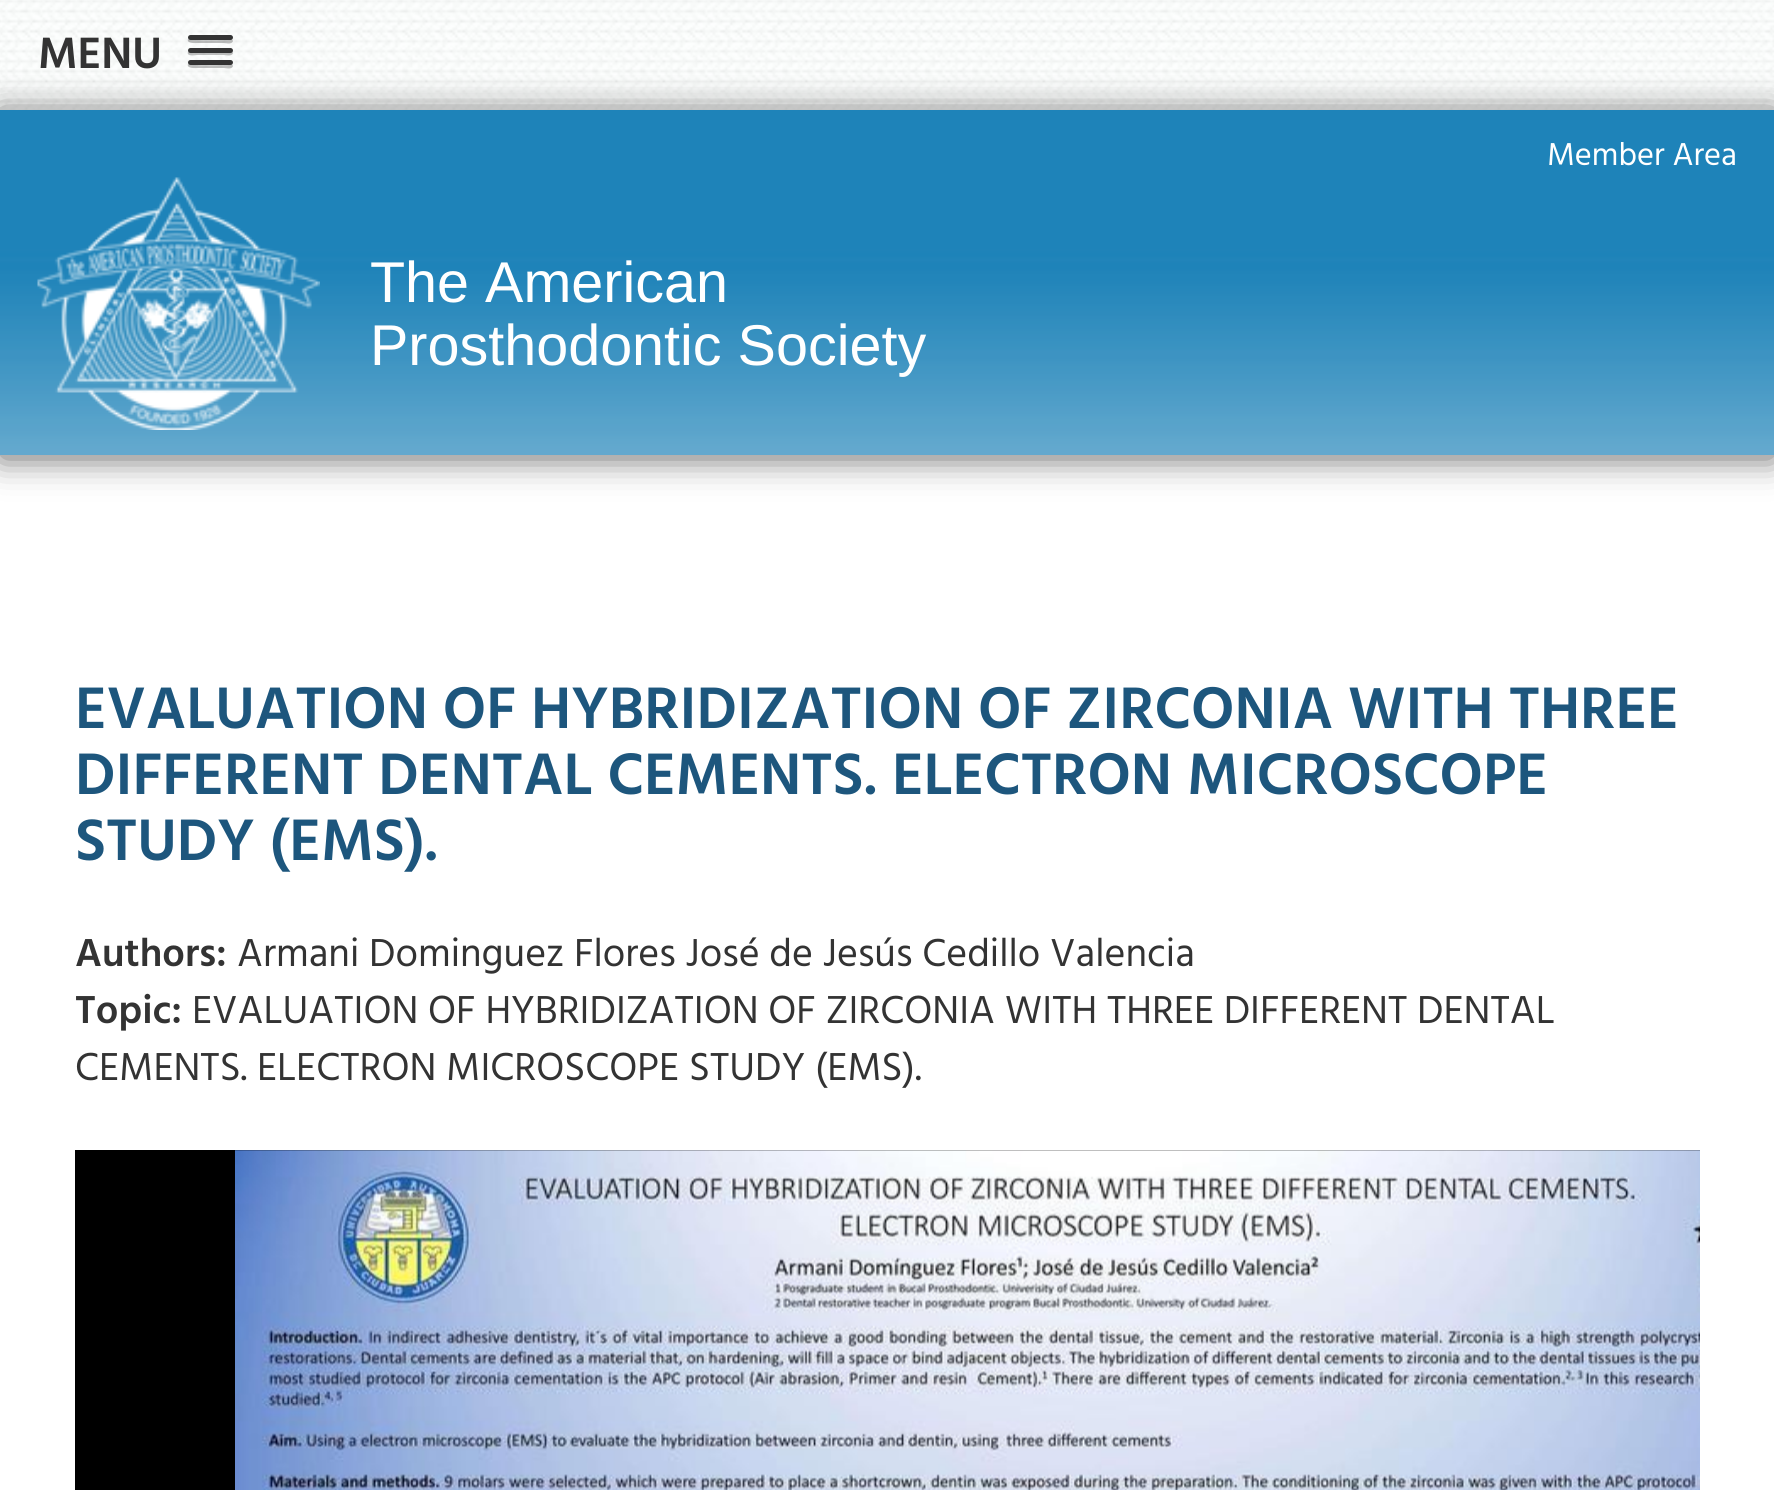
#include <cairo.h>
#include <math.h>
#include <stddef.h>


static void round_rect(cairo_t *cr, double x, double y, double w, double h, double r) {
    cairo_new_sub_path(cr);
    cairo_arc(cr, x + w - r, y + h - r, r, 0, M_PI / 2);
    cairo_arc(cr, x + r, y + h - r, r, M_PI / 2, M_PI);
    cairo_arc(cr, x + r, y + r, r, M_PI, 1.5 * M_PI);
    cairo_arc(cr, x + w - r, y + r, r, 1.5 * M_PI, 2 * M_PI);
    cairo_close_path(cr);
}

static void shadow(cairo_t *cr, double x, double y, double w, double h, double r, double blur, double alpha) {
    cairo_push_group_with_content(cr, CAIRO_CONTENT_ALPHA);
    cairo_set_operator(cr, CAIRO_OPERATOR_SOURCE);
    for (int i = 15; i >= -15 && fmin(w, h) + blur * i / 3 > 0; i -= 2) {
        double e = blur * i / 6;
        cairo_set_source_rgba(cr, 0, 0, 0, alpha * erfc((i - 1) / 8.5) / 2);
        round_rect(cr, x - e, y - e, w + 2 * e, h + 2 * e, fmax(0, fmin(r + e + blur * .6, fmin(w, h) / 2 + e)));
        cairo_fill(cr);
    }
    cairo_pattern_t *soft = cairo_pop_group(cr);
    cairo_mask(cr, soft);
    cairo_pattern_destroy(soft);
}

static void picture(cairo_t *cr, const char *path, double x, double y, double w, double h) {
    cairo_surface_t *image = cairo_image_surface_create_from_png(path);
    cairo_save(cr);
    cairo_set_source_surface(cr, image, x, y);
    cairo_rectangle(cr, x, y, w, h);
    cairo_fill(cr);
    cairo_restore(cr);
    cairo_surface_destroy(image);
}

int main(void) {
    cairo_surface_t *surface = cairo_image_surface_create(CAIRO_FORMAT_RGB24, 1774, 1490);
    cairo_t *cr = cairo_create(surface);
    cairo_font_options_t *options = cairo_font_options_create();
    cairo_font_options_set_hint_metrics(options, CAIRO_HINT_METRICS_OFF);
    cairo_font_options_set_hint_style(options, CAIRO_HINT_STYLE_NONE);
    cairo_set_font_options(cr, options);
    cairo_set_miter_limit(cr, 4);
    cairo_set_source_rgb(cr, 1, 1, 1);
    cairo_paint(cr);
    picture(cr, "img1.png", 0, 0, 1774, 110);
    cairo_select_font_face(cr, "Hind SemiBold", CAIRO_FONT_SLANT_NORMAL, CAIRO_FONT_WEIGHT_NORMAL);
    cairo_set_font_size(cr, 45);
    cairo_set_source_rgb(cr, 0.2, 0.2, 0.2);
    cairo_move_to(cr, 38, 68);
    cairo_show_text(cr, "MENU");
    cairo_set_source_rgba(cr, 0, 0, 0, 0.25);
    cairo_new_path(cr);
    cairo_move_to(cr, 188, 39);
    cairo_curve_to(cr, 186, 44, 197, 43, 197, 43);
    cairo_line_to(cr, 224, 43);
    cairo_curve_to(cr, 225, 43, 232, 45, 233, 41);
    cairo_line_to(cr, 232, 39);
    cairo_line_to(cr, 230, 40);
    cairo_curve_to(cr, 227, 40, 190, 41, 188, 39);
    cairo_close_path(cr);
    cairo_fill(cr);
    cairo_set_source_rgb(cr, 0.2, 0.2, 0.2);
    round_rect(cr, 188, 35, 45, 5, 2.5);
    cairo_fill(cr);
    cairo_set_source_rgba(cr, 0, 0, 0, 0.25);
    cairo_new_path(cr);
    cairo_move_to(cr, 188, 52);
    cairo_curve_to(cr, 186, 57, 196, 55, 197, 55);
    cairo_line_to(cr, 224, 55);
    cairo_curve_to(cr, 225, 55, 232, 57, 233, 53);
    cairo_line_to(cr, 232, 51);
    cairo_line_to(cr, 230, 52);
    cairo_line_to(cr, 190, 52);
    cairo_close_path(cr);
    cairo_fill(cr);
    cairo_set_source_rgb(cr, 0.2, 0.2, 0.2);
    round_rect(cr, 188, 48, 45, 5, 2.5);
    cairo_fill(cr);
    cairo_set_source_rgba(cr, 0, 0, 0, 0.25);
    cairo_new_path(cr);
    cairo_move_to(cr, 188, 64);
    cairo_curve_to(cr, 186, 69, 197, 68, 197, 68);
    cairo_line_to(cr, 224, 68);
    cairo_curve_to(cr, 225, 68, 232, 70, 233, 66);
    cairo_line_to(cr, 232, 64);
    cairo_line_to(cr, 230, 65);
    cairo_curve_to(cr, 227, 65, 190, 66, 188, 64);
    cairo_close_path(cr);
    cairo_fill(cr);
    cairo_set_source_rgb(cr, 0.2, 0.2, 0.2);
    round_rect(cr, 188, 60, 45, 5, 2.5);
    cairo_fill(cr);
    cairo_set_source_rgb(cr, 0.4, 0.4, 0.4);
    shadow(cr, 0, 113, 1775, 345, 0, 17.5, 1);
    picture(cr, "img2.png", 0, 110, 1774, 345);
    cairo_select_font_face(cr, "Hind", CAIRO_FONT_SLANT_NORMAL, CAIRO_FONT_WEIGHT_NORMAL);
    cairo_set_font_size(cr, 32.5);
    cairo_set_source_rgb(cr, 1, 1, 1);
    cairo_move_to(cr, 1547, 165);
    cairo_show_text(cr, "Member Area");
    picture(cr, "img3.png", 37, 177, 283, 253);
    cairo_select_font_face(cr, "Liberation Sans", CAIRO_FONT_SLANT_NORMAL, CAIRO_FONT_WEIGHT_NORMAL);
    cairo_set_font_size(cr, 57.5);
    cairo_move_to(cr, 370, 302);
    cairo_show_text(cr, "The American");
    cairo_move_to(cr, 370, 365);
    cairo_show_text(cr, "Prosthodontic Society");
    cairo_select_font_face(cr, "Hind SemiBold", CAIRO_FONT_SLANT_NORMAL, CAIRO_FONT_WEIGHT_NORMAL);
    cairo_set_font_size(cr, 60);
    cairo_set_source_rgb(cr, 0.114, 0.337, 0.49);
    cairo_move_to(cr, 75, 728);
    cairo_show_text(cr, "EVALUATION OF HYBRIDIZATION OF ZIRCONIA WITH THREE");
    cairo_move_to(cr, 75, 794);
    cairo_show_text(cr, "DIFFERENT DENTAL CEMENTS. ELECTRON MICROSCOPE");
    cairo_move_to(cr, 75, 860);
    cairo_show_text(cr, "STUDY (EMS).");
    cairo_set_font_size(cr, 40);
    cairo_set_source_rgb(cr, 0.2, 0.2, 0.2);
    cairo_move_to(cr, 75, 966);
    cairo_show_text(cr, "Authors:");
    cairo_select_font_face(cr, "Hind", CAIRO_FONT_SLANT_NORMAL, CAIRO_FONT_WEIGHT_NORMAL);
    cairo_move_to(cr, 237, 966);
    cairo_show_text(cr, "Armani Dominguez Flores José de Jesús Cedillo Valencia");
    cairo_select_font_face(cr, "Hind SemiBold", CAIRO_FONT_SLANT_NORMAL, CAIRO_FONT_WEIGHT_NORMAL);
    cairo_move_to(cr, 75, 1023);
    cairo_show_text(cr, "Topic:");
    cairo_select_font_face(cr, "Hind", CAIRO_FONT_SLANT_NORMAL, CAIRO_FONT_WEIGHT_NORMAL);
    cairo_move_to(cr, 192, 1023);
    cairo_show_text(cr, "EVALUATION OF HYBRIDIZATION OF ZIRCONIA WITH THREE DIFFERENT DENTAL");
    cairo_move_to(cr, 75, 1080);
    cairo_show_text(cr, "CEMENTS. ELECTRON MICROSCOPE STUDY (EMS).");
    cairo_set_source_rgb(cr, 0, 0, 0);
    cairo_rectangle(cr, 75, 1150, 1625, 340);
    cairo_fill(cr);
    picture(cr, "img4.png", 235, 1150, 1465, 340);
    cairo_surface_write_to_png(surface, "page.png");
    cairo_font_options_destroy(options);
    cairo_destroy(cr);
    cairo_surface_destroy(surface);
    return 0;
}
